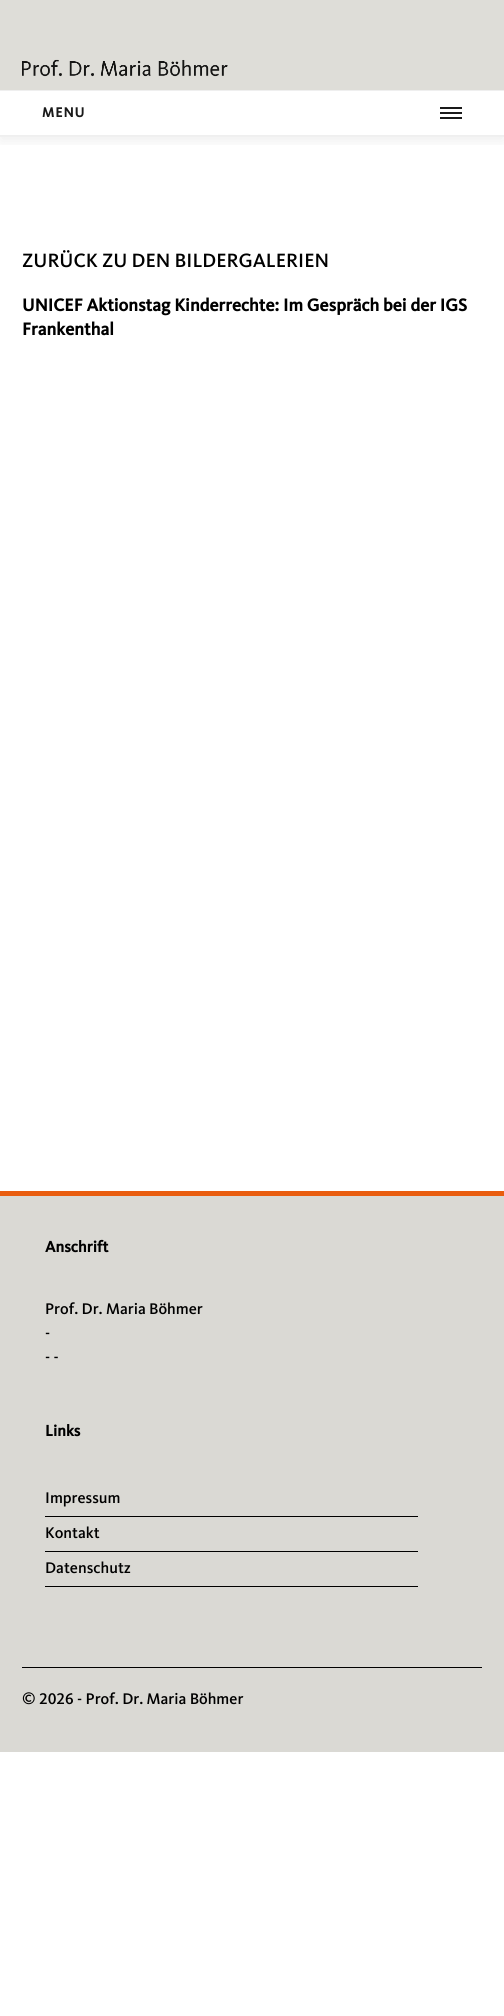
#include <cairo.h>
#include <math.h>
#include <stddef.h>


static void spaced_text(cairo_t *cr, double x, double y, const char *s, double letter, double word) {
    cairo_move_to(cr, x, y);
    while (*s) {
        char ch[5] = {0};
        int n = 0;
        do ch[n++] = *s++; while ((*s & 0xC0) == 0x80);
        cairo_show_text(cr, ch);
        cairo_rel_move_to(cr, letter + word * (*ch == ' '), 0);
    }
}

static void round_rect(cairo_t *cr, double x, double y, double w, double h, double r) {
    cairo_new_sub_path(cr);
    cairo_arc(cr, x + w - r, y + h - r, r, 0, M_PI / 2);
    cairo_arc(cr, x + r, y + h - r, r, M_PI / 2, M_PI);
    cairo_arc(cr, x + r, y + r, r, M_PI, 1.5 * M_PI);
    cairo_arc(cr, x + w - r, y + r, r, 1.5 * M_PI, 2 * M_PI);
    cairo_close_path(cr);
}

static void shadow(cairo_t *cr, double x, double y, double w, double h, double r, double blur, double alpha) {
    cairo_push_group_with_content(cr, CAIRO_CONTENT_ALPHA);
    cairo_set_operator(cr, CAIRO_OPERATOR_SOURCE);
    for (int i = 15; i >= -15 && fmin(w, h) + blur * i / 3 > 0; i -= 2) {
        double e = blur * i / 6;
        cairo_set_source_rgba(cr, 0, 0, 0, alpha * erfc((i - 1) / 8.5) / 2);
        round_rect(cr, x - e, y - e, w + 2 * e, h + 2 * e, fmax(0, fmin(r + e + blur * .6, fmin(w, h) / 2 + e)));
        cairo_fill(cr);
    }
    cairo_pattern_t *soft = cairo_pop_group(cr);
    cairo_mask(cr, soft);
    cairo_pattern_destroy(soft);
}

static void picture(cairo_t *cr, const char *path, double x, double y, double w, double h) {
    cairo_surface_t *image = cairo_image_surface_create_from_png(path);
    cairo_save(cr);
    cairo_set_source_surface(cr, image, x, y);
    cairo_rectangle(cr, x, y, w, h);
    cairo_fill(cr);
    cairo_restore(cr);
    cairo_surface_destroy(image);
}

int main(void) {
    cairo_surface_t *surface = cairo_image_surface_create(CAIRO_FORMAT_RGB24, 504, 2016);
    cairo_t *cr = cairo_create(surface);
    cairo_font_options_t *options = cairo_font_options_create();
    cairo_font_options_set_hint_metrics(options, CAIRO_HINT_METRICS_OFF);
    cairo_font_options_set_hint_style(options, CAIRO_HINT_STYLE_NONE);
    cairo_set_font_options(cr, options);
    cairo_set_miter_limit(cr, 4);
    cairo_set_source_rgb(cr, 1, 1, 1);
    cairo_paint(cr);
    cairo_save(cr);
    cairo_rectangle(cr, 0, 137, 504, 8);
    cairo_clip(cr);
    cairo_set_source_rgb(cr, 0, 0, 0);
    shadow(cr, 0, 4, 504, 137, 0, 7.5, 0.07);
    cairo_restore(cr);
    cairo_set_source_rgb(cr, 0.941, 0.941, 0.941);
    cairo_rectangle(cr, 0, 136, 504, 1);
    cairo_fill(cr);
    cairo_set_source_rgb(cr, 0.871, 0.867, 0.847);
    cairo_rectangle(cr, 0, 0, 504, 90);
    cairo_fill(cr);
    picture(cr, "img1.png", 22, 59, 206, 18);
    cairo_set_source_rgb(cr, 0.937, 0.937, 0.937);
    cairo_rectangle(cr, 0, 90, 504, 1);
    cairo_fill(cr);
    cairo_rectangle(cr, 0, 135, 504, 1);
    cairo_fill(cr);
    cairo_select_font_face(cr, "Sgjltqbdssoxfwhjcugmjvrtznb", CAIRO_FONT_SLANT_NORMAL, CAIRO_FONT_WEIGHT_BOLD);
    cairo_set_font_size(cr, 14);
    cairo_set_source_rgb(cr, 0.102, 0.102, 0.102);
    spaced_text(cr, 42, 117, "MENU", 1, 0);
    cairo_rectangle(cr, 440, 107, 22, 2);
    cairo_fill(cr);
    cairo_rectangle(cr, 440, 112, 22, 2);
    cairo_fill(cr);
    cairo_rectangle(cr, 440, 117, 22, 2);
    cairo_fill(cr);
    cairo_select_font_face(cr, "Sgjltqbdssoxfwhjcugmjvrtznb Medium", CAIRO_FONT_SLANT_NORMAL, CAIRO_FONT_WEIGHT_NORMAL);
    cairo_set_font_size(cr, 20);
    cairo_set_source_rgb(cr, 0, 0, 0);
    cairo_move_to(cr, 22, 267);
    cairo_show_text(cr, "ZURÜCK ZU DEN BILDERGALERIEN");
    cairo_select_font_face(cr, "Sgjltqbdssoxfwhjcugmjvrtznb", CAIRO_FONT_SLANT_NORMAL, CAIRO_FONT_WEIGHT_BOLD);
    cairo_set_font_size(cr, 18);
    cairo_move_to(cr, 22, 311);
    cairo_show_text(cr, "UNICEF Aktionstag Kinderrechte: Im Gespräch bei der IGS");
    cairo_move_to(cr, 22, 335);
    cairo_show_text(cr, "Frankenthal");
    cairo_set_source_rgb(cr, 0.855, 0.851, 0.831);
    cairo_rectangle(cr, 0, 1196, 504, 556);
    cairo_fill(cr);
    cairo_set_source_rgb(cr, 0.914, 0.365, 0.059);
    cairo_rectangle(cr, 0, 1191, 504, 5);
    cairo_fill(cr);
    cairo_set_font_size(cr, 16);
    cairo_set_source_rgb(cr, 0, 0, 0);
    cairo_move_to(cr, 45, 1252);
    cairo_show_text(cr, "Anschrift");
    cairo_select_font_face(cr, "Sgjltqbdssoxfwhjcugmjvrtznb Medium", CAIRO_FONT_SLANT_NORMAL, CAIRO_FONT_WEIGHT_NORMAL);
    cairo_move_to(cr, 45, 1314);
    cairo_show_text(cr, "Prof. Dr. Maria Böhmer");
    cairo_move_to(cr, 45, 1338);
    cairo_show_text(cr, "-");
    cairo_move_to(cr, 45, 1362);
    cairo_show_text(cr, "- -");
    cairo_select_font_face(cr, "Sgjltqbdssoxfwhjcugmjvrtznb", CAIRO_FONT_SLANT_NORMAL, CAIRO_FONT_WEIGHT_BOLD);
    cairo_move_to(cr, 45, 1436);
    cairo_show_text(cr, "Links");
    cairo_rectangle(cr, 45, 1516, 373, 1);
    cairo_fill(cr);
    cairo_select_font_face(cr, "Sgjltqbdssoxfwhjcugmjvrtznb Medium", CAIRO_FONT_SLANT_NORMAL, CAIRO_FONT_WEIGHT_NORMAL);
    cairo_move_to(cr, 45, 1503);
    cairo_show_text(cr, "Impressum");
    cairo_rectangle(cr, 45, 1551, 373, 1);
    cairo_fill(cr);
    cairo_move_to(cr, 45, 1538);
    cairo_show_text(cr, "Kontakt");
    cairo_rectangle(cr, 45, 1586, 373, 1);
    cairo_fill(cr);
    cairo_move_to(cr, 45, 1573);
    cairo_show_text(cr, "Datenschutz");
    cairo_rectangle(cr, 22, 1667, 460, 1);
    cairo_fill(cr);
    cairo_move_to(cr, 22, 1704);
    cairo_show_text(cr, "© 2026 - Prof. Dr. Maria Böhmer");
    cairo_surface_write_to_png(surface, "page.png");
    cairo_font_options_destroy(options);
    cairo_destroy(cr);
    cairo_surface_destroy(surface);
    return 0;
}
